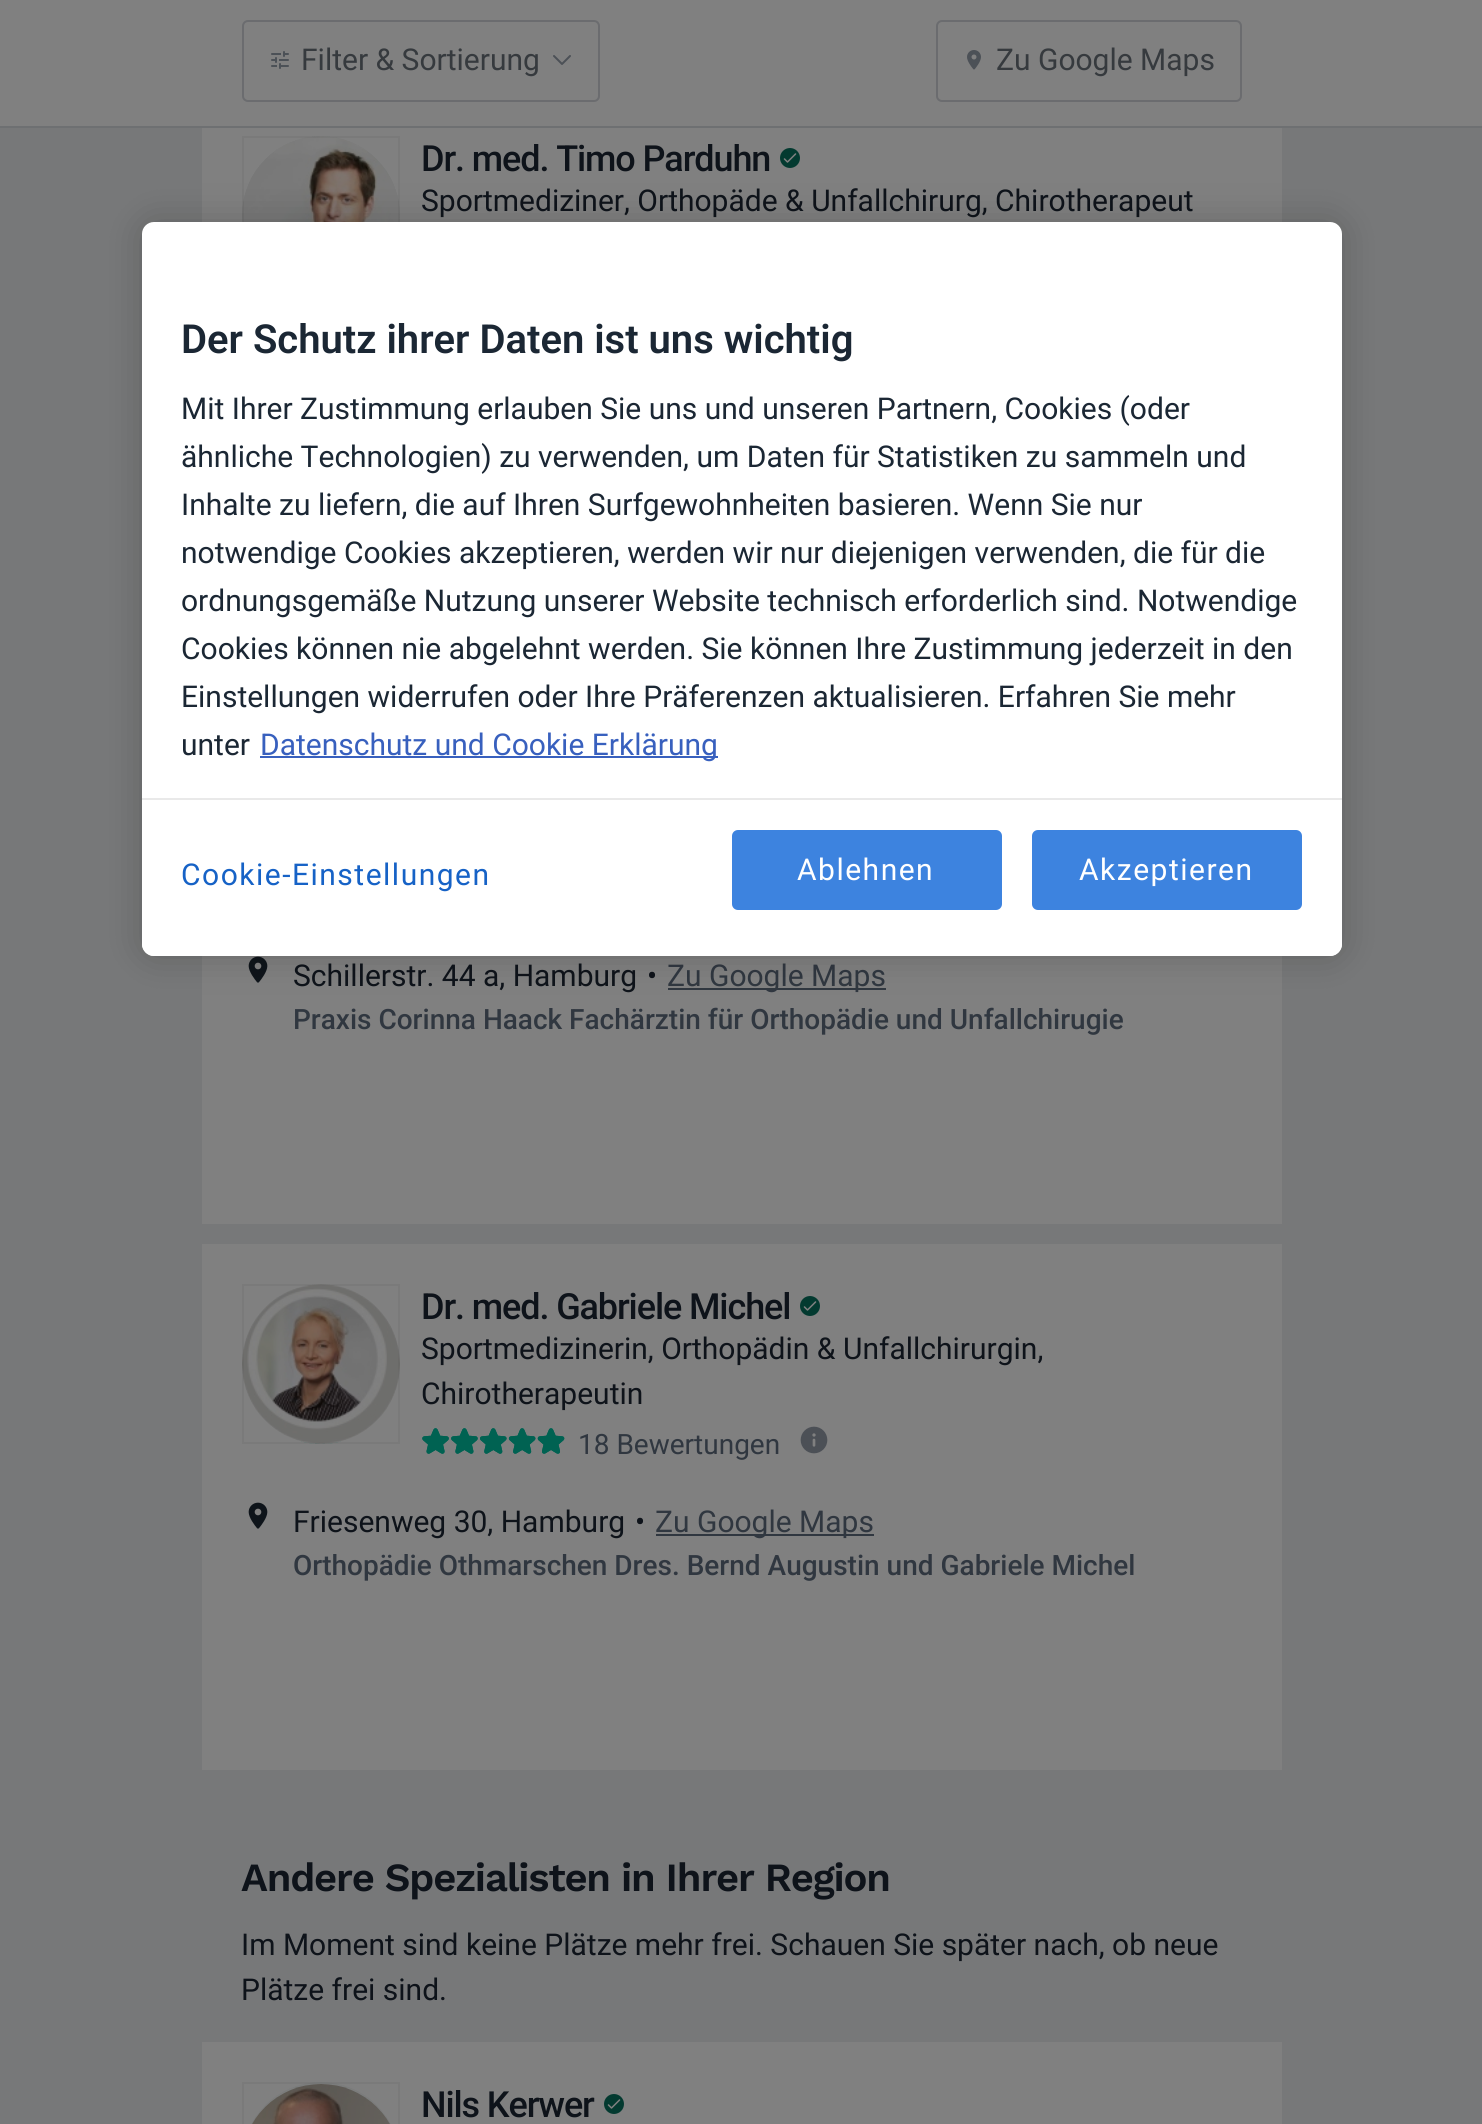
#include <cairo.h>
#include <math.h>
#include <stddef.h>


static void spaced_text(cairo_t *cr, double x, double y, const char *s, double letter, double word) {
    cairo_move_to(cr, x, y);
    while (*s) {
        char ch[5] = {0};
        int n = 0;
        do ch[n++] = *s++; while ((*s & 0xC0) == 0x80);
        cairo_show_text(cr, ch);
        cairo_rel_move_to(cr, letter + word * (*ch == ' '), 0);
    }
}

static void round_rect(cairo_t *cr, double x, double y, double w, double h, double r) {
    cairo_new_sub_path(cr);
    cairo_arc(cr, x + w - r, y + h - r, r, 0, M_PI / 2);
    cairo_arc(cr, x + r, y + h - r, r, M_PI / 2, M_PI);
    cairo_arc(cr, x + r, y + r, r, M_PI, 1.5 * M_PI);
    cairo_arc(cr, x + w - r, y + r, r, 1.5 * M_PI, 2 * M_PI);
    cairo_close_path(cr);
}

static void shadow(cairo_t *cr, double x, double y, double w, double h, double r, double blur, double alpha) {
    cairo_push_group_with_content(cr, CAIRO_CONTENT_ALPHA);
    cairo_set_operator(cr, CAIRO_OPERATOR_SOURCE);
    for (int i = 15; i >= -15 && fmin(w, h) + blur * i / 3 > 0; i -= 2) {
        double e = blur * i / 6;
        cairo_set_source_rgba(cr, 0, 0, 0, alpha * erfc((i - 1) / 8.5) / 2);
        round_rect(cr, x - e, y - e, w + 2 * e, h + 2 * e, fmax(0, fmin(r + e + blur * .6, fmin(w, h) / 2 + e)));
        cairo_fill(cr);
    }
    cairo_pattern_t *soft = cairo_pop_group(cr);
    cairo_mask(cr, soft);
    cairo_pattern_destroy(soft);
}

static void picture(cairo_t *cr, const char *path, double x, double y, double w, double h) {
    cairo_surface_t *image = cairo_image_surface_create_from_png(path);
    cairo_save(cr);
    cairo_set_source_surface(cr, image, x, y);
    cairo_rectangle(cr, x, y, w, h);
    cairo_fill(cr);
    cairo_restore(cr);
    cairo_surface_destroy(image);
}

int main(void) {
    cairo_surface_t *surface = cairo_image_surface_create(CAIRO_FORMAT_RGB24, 1482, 2124);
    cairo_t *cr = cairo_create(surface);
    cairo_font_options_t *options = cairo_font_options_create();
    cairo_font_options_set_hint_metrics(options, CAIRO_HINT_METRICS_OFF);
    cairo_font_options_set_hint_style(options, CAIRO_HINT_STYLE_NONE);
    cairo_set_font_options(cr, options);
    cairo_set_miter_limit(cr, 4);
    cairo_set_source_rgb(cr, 0.467, 0.471, 0.475);
    cairo_paint(cr);
    cairo_set_source_rgb(cr, 0.502, 0.502, 0.502);
    cairo_rectangle(cr, 0, 0, 1482, 126);
    cairo_fill(cr);
    cairo_set_source_rgb(cr, 0.431, 0.439, 0.447);
    cairo_rectangle(cr, 0, 126, 1482, 2);
    cairo_fill(cr);
    round_rect(cr, 243, 21, 356, 80, 5);
    cairo_set_source_rgb(cr, 0.42, 0.424, 0.435);
    cairo_stroke(cr);
    picture(cr, "img1.png", 271, 51, 18, 18);
    cairo_select_font_face(cr, "Roboto", CAIRO_FONT_SLANT_NORMAL, CAIRO_FONT_WEIGHT_NORMAL);
    cairo_set_font_size(cr, 30);
    cairo_set_source_rgb(cr, 0.212, 0.227, 0.243);
    cairo_move_to(cr, 301, 70);
    cairo_show_text(cr, "Filter & Sortierung");
    picture(cr, "img2.png", 553, 55, 18, 10);
    round_rect(cr, 937, 21, 304, 80, 5);
    cairo_set_source_rgb(cr, 0.42, 0.424, 0.435);
    cairo_stroke(cr);
    picture(cr, "img3.png", 967, 50, 14, 20);
    cairo_set_source_rgb(cr, 0.212, 0.227, 0.243);
    cairo_move_to(cr, 996, 70);
    cairo_show_text(cr, "Zu Google Maps");
    cairo_set_source_rgb(cr, 0.502, 0.502, 0.502);
    cairo_rectangle(cr, 202, 128, 1080, 94);
    cairo_fill(cr);
    picture(cr, "img4.png", 242, 136, 158, 86);
    picture(cr, "img5.png", 242, 136, 158, 86);
    cairo_rectangle(cr, 243, 137, 156, 158);
    cairo_set_source_rgba(cr, 0, 0, 0, 0.05);
    cairo_stroke(cr);
    cairo_select_font_face(cr, "Roboto Medium", CAIRO_FONT_SLANT_NORMAL, CAIRO_FONT_WEIGHT_NORMAL);
    cairo_set_font_size(cr, 36);
    cairo_set_source_rgb(cr, 0.055, 0.078, 0.102);
    spaced_text(cr, 421, 171, "Dr. med. Timo Parduhn", -1.1, 0);
    picture(cr, "img6.png", 780, 148, 20, 20);
    cairo_select_font_face(cr, "Roboto", CAIRO_FONT_SLANT_NORMAL, CAIRO_FONT_WEIGHT_NORMAL);
    cairo_set_font_size(cr, 30);
    cairo_move_to(cr, 421, 211);
    cairo_show_text(cr, "Sportmediziner, Orthopäde & Unfallchirurg, Chirotherapeut");
    cairo_set_source_rgb(cr, 0.502, 0.502, 0.502);
    cairo_rectangle(cr, 202, 956, 1080, 268);
    cairo_fill(cr);
    picture(cr, "img7.png", 248, 956, 20, 27);
    cairo_set_source_rgb(cr, 0.055, 0.078, 0.102);
    cairo_move_to(cr, 293, 986);
    cairo_show_text(cr, "Schillerstr. 44 a, Hamburg");
    cairo_move_to(cr, 647, 986);
    cairo_show_text(cr, "•");
    cairo_set_source_rgb(cr, 0.188, 0.216, 0.251);
    cairo_rectangle(cr, 668, 988, 218, 2);
    cairo_fill(cr);
    cairo_move_to(cr, 667, 986);
    cairo_show_text(cr, "Zu Google Maps");
    cairo_select_font_face(cr, "Roboto Medium", CAIRO_FONT_SLANT_NORMAL, CAIRO_FONT_WEIGHT_NORMAL);
    cairo_set_font_size(cr, 28);
    cairo_move_to(cr, 293, 1029);
    cairo_show_text(cr, "Praxis Corinna Haack Fachärztin für Orthopädie und Unfallchirugie");
    cairo_set_source_rgb(cr, 0.502, 0.502, 0.502);
    cairo_rectangle(cr, 202, 1244, 1080, 526);
    cairo_fill(cr);
    picture(cr, "img8.png", 242, 1284, 158, 160);
    picture(cr, "img9.png", 242, 1284, 158, 160);
    cairo_rectangle(cr, 243, 1285, 156, 158);
    cairo_set_source_rgba(cr, 0, 0, 0, 0.05);
    cairo_stroke(cr);
    cairo_set_font_size(cr, 36);
    cairo_set_source_rgb(cr, 0.055, 0.078, 0.102);
    spaced_text(cr, 421, 1319, "Dr. med. Gabriele Michel", -1.1, 0);
    picture(cr, "img6.png", 800, 1296, 20, 20);
    cairo_select_font_face(cr, "Roboto", CAIRO_FONT_SLANT_NORMAL, CAIRO_FONT_WEIGHT_NORMAL);
    cairo_set_font_size(cr, 30);
    cairo_move_to(cr, 421, 1359);
    cairo_show_text(cr, "Sportmedizinerin, Orthopädin & Unfallchirurgin,");
    cairo_move_to(cr, 421, 1404);
    cairo_show_text(cr, "Chirotherapeutin");
    picture(cr, "img10.png", 422, 1428, 143, 26);
    picture(cr, "img11.png", 422, 1428, 143, 26);
    cairo_set_font_size(cr, 28);
    cairo_set_source_rgb(cr, 0.188, 0.216, 0.251);
    cairo_move_to(cr, 578, 1454);
    cairo_show_text(cr, "18 Bewertungen");
    picture(cr, "img12.png", 800, 1426, 28, 28);
    picture(cr, "img7.png", 248, 1502, 20, 27);
    cairo_set_font_size(cr, 30);
    cairo_set_source_rgb(cr, 0.055, 0.078, 0.102);
    cairo_move_to(cr, 293, 1532);
    cairo_show_text(cr, "Friesenweg 30, Hamburg");
    cairo_move_to(cr, 635, 1532);
    cairo_show_text(cr, "•");
    cairo_set_source_rgb(cr, 0.188, 0.216, 0.251);
    cairo_rectangle(cr, 656, 1534, 218, 2);
    cairo_fill(cr);
    cairo_move_to(cr, 655, 1532);
    cairo_show_text(cr, "Zu Google Maps");
    cairo_select_font_face(cr, "Roboto Medium", CAIRO_FONT_SLANT_NORMAL, CAIRO_FONT_WEIGHT_NORMAL);
    cairo_set_font_size(cr, 28);
    cairo_move_to(cr, 293, 1575);
    cairo_show_text(cr, "Orthopädie Othmarschen Dres. Bernd Augustin und Gabriele Michel");
    cairo_select_font_face(cr, "Work Sans SemiBold", CAIRO_FONT_SLANT_NORMAL, CAIRO_FONT_WEIGHT_NORMAL);
    cairo_set_font_size(cr, 40);
    cairo_set_source_rgb(cr, 0.055, 0.078, 0.102);
    spaced_text(cr, 241, 1891, "Andere Spezialisten in Ihrer Region", -1.2, 0);
    cairo_select_font_face(cr, "Roboto", CAIRO_FONT_SLANT_NORMAL, CAIRO_FONT_WEIGHT_NORMAL);
    cairo_set_font_size(cr, 30);
    cairo_move_to(cr, 241, 1955);
    cairo_show_text(cr, "Im Moment sind keine Plätze mehr frei. Schauen Sie später nach, ob neue");
    cairo_move_to(cr, 241, 2000);
    cairo_show_text(cr, "Plätze frei sind.");
    cairo_set_source_rgb(cr, 0.502, 0.502, 0.502);
    cairo_rectangle(cr, 202, 2042, 1080, 82);
    cairo_fill(cr);
    picture(cr, "img13.png", 251, 2082, 140, 42);
    picture(cr, "img14.png", 252, 2084, 138, 40);
    cairo_rectangle(cr, 243, 2083, 156, 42);
    cairo_set_source_rgba(cr, 0, 0, 0, 0.05);
    cairo_stroke(cr);
    cairo_select_font_face(cr, "Roboto Medium", CAIRO_FONT_SLANT_NORMAL, CAIRO_FONT_WEIGHT_NORMAL);
    cairo_set_font_size(cr, 36);
    cairo_set_source_rgb(cr, 0.055, 0.078, 0.102);
    spaced_text(cr, 421, 2117, "Nils Kerwer", -1.1, 0);
    picture(cr, "img6.png", 604, 2094, 20, 20);
    cairo_set_source_rgb(cr, 0, 0, 0);
    shadow(cr, 142, 222, 1200, 734, 12, 18, 0.2);
    cairo_set_source_rgb(cr, 1, 1, 1);
    round_rect(cr, 142, 222, 1200, 734, 12);
    cairo_fill(cr);
    cairo_select_font_face(cr, "Roboto SemiBold", CAIRO_FONT_SLANT_NORMAL, CAIRO_FONT_WEIGHT_NORMAL);
    cairo_set_font_size(cr, 40);
    cairo_set_source_rgb(cr, 0.106, 0.153, 0.204);
    cairo_move_to(cr, 181, 353);
    cairo_show_text(cr, "Der Schutz ihrer Daten ist uns wichtig");
    cairo_select_font_face(cr, "Roboto", CAIRO_FONT_SLANT_NORMAL, CAIRO_FONT_WEIGHT_NORMAL);
    cairo_set_font_size(cr, 30);
    cairo_move_to(cr, 181, 419);
    cairo_show_text(cr, "Mit Ihrer Zustimmung erlauben Sie uns und unseren Partnern, Cookies (oder");
    cairo_move_to(cr, 181, 467);
    cairo_show_text(cr, "ähnliche Technologien) zu verwenden, um Daten für Statistiken zu sammeln und");
    cairo_move_to(cr, 181, 515);
    cairo_show_text(cr, "Inhalte zu liefern, die auf Ihren Surfgewohnheiten basieren. Wenn Sie nur");
    cairo_move_to(cr, 181, 563);
    cairo_show_text(cr, "notwendige Cookies akzeptieren, werden wir nur diejenigen verwenden, die für die");
    cairo_move_to(cr, 181, 611);
    cairo_show_text(cr, "ordnungsgemäße Nutzung unserer Website technisch erforderlich sind. Notwendige");
    cairo_move_to(cr, 181, 659);
    cairo_show_text(cr, "Cookies können nie abgelehnt werden. Sie können Ihre Zustimmung jederzeit in den");
    cairo_move_to(cr, 181, 707);
    cairo_show_text(cr, "Einstellungen widerrufen oder Ihre Präferenzen aktualisieren. Erfahren Sie mehr");
    cairo_move_to(cr, 181, 755);
    cairo_show_text(cr, "unter");
    cairo_set_source_rgb(cr, 0.22, 0.376, 0.745);
    cairo_rectangle(cr, 260, 756, 458, 2);
    cairo_fill(cr);
    cairo_move_to(cr, 260, 755);
    cairo_show_text(cr, "Datenschutz und Cookie Erklärung");
    cairo_set_source_rgb(cr, 1, 1, 1);
    cairo_new_path(cr);
    cairo_move_to(cr, 142, 798);
    cairo_line_to(cr, 1342, 798);
    cairo_line_to(cr, 1342, 944);
    cairo_curve_to(cr, 1342, 950.5, 1336.5, 956, 1330, 956);
    cairo_line_to(cr, 154, 956);
    cairo_curve_to(cr, 147.5, 956, 142, 950.5, 142, 944);
    cairo_close_path(cr);
    cairo_fill(cr);
    cairo_set_source_rgb(cr, 0.914, 0.914, 0.914);
    cairo_rectangle(cr, 142, 798, 1200, 2);
    cairo_fill(cr);
    cairo_set_source_rgb(cr, 0.086, 0.384, 0.776);
    spaced_text(cr, 181, 885, "Cookie-Einstellungen", 1.5, 0);
    cairo_set_source_rgb(cr, 0.239, 0.514, 0.875);
    round_rect(cr, 733, 831, 268, 78, 5);
    cairo_fill_preserve(cr);
    cairo_stroke(cr);
    cairo_set_source_rgb(cr, 1, 1, 1);
    spaced_text(cr, 797, 880, "Ablehnen", 1.5, 0);
    cairo_set_source_rgb(cr, 0.239, 0.514, 0.875);
    round_rect(cr, 1033, 831, 268, 78, 5);
    cairo_fill_preserve(cr);
    cairo_stroke(cr);
    cairo_set_source_rgb(cr, 1, 1, 1);
    spaced_text(cr, 1079, 880, "Akzeptieren", 1.5, 0);
    cairo_surface_write_to_png(surface, "page.png");
    cairo_font_options_destroy(options);
    cairo_destroy(cr);
    cairo_surface_destroy(surface);
    return 0;
}
